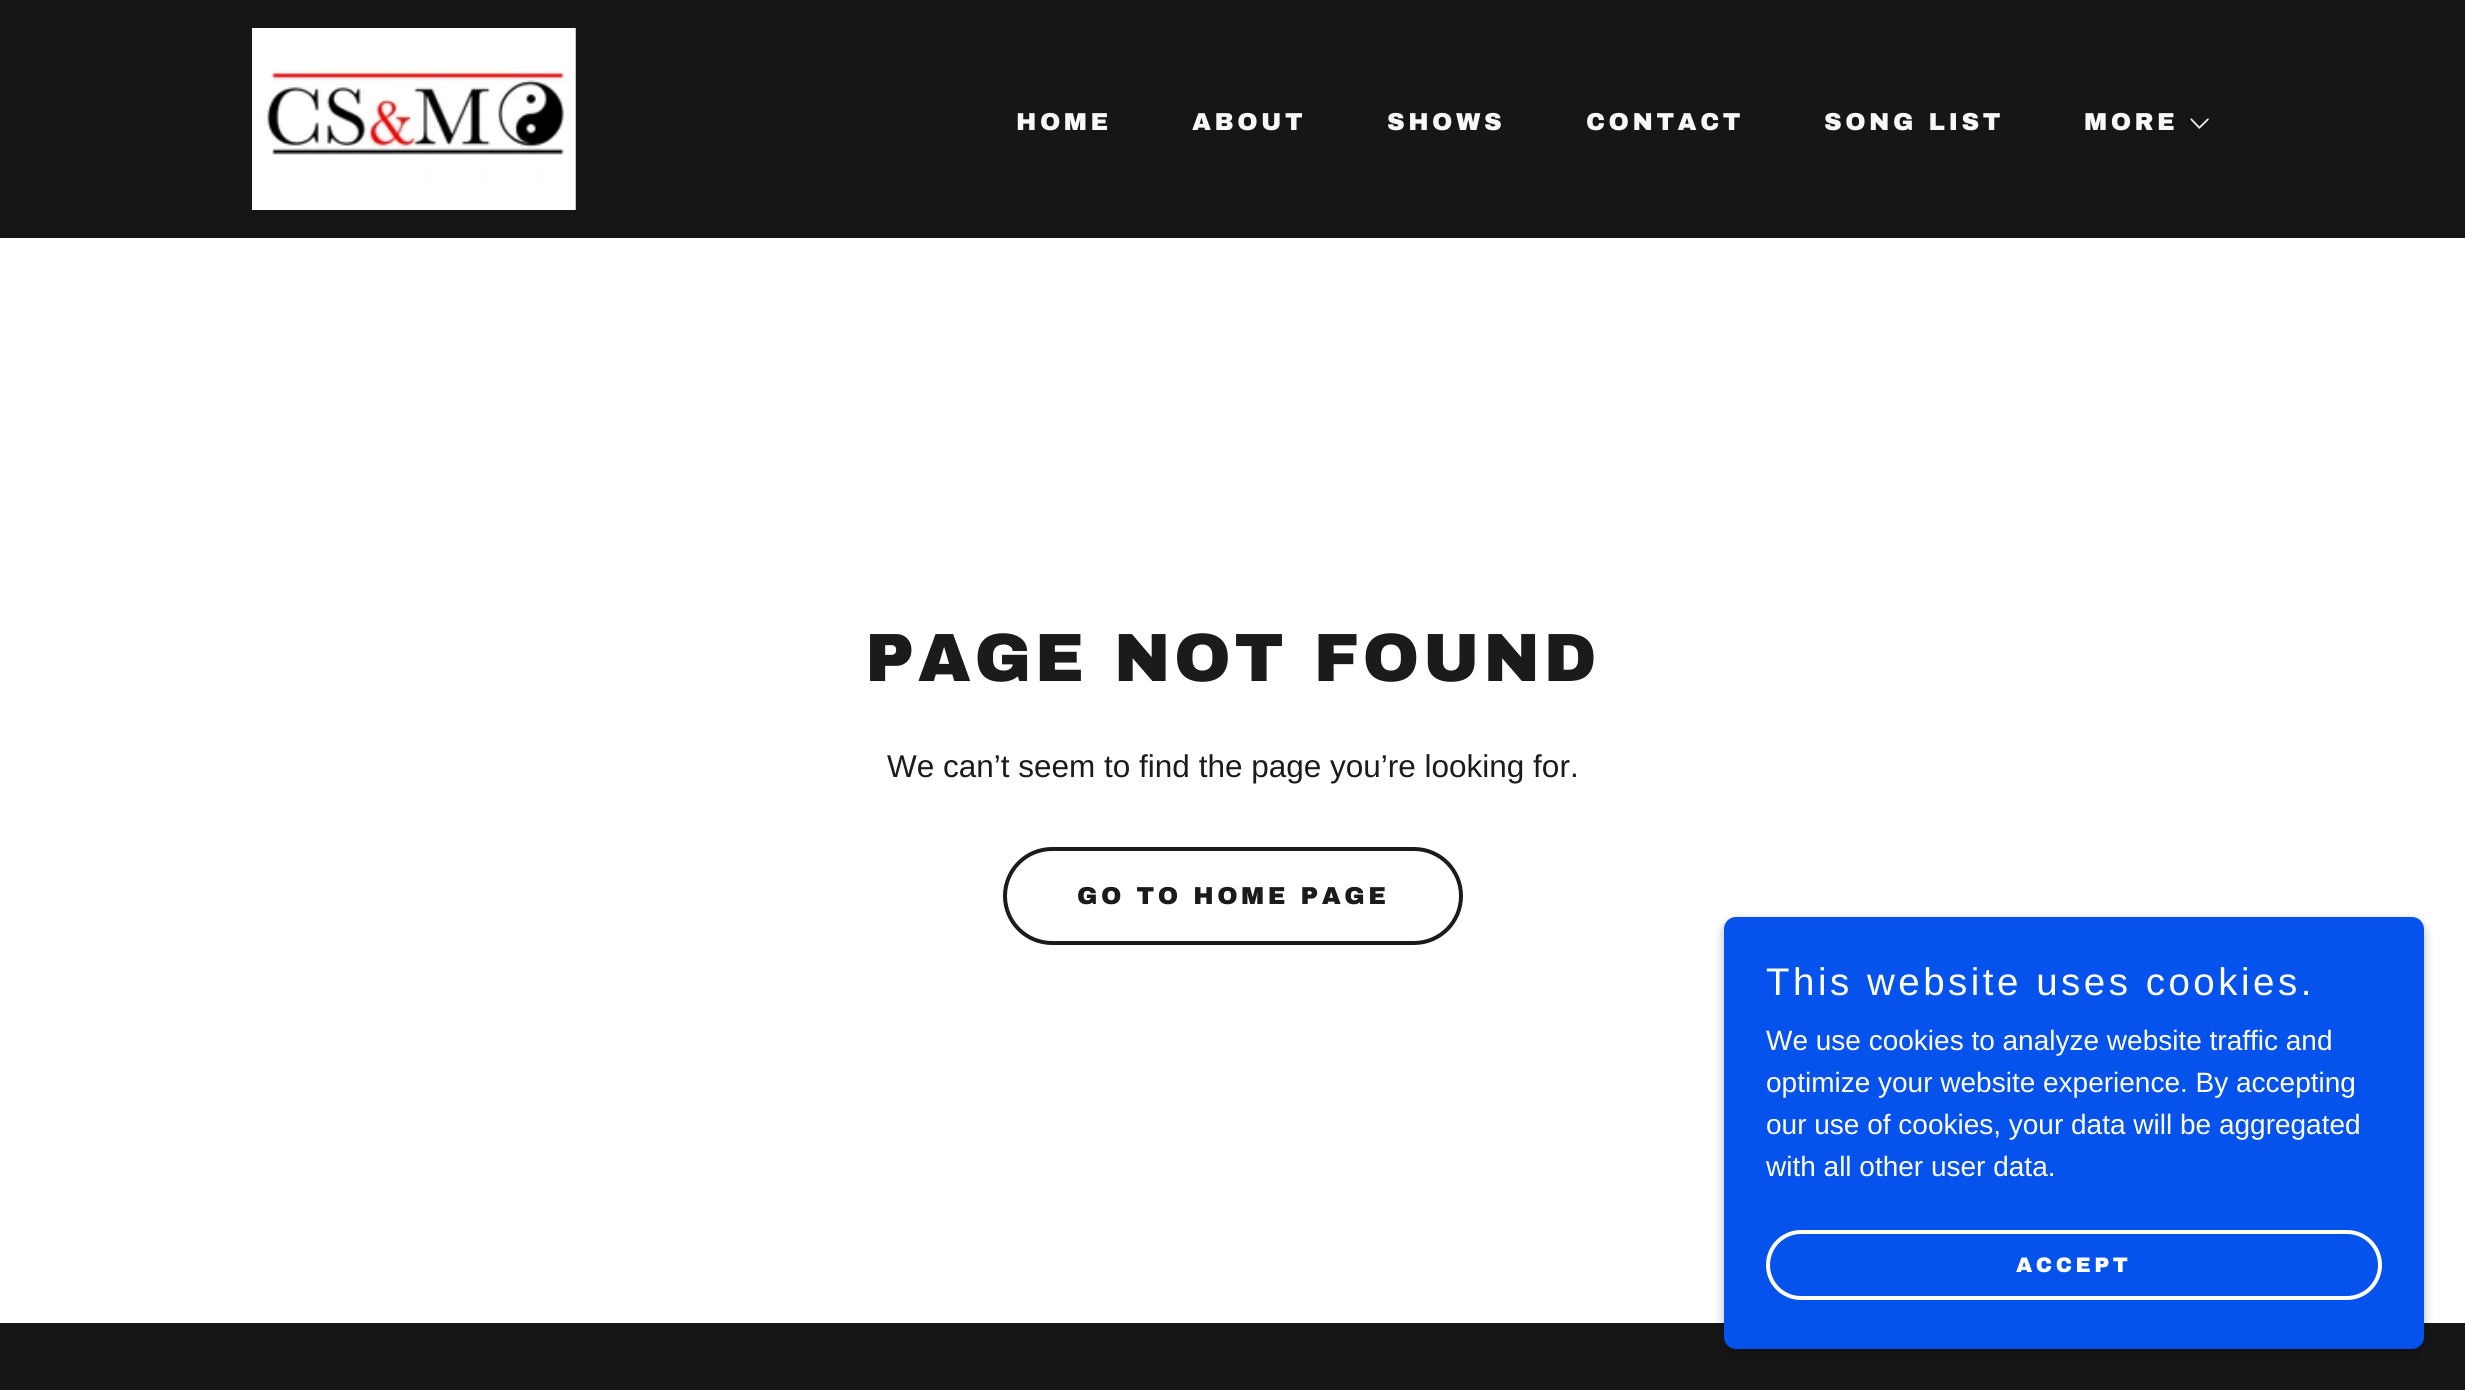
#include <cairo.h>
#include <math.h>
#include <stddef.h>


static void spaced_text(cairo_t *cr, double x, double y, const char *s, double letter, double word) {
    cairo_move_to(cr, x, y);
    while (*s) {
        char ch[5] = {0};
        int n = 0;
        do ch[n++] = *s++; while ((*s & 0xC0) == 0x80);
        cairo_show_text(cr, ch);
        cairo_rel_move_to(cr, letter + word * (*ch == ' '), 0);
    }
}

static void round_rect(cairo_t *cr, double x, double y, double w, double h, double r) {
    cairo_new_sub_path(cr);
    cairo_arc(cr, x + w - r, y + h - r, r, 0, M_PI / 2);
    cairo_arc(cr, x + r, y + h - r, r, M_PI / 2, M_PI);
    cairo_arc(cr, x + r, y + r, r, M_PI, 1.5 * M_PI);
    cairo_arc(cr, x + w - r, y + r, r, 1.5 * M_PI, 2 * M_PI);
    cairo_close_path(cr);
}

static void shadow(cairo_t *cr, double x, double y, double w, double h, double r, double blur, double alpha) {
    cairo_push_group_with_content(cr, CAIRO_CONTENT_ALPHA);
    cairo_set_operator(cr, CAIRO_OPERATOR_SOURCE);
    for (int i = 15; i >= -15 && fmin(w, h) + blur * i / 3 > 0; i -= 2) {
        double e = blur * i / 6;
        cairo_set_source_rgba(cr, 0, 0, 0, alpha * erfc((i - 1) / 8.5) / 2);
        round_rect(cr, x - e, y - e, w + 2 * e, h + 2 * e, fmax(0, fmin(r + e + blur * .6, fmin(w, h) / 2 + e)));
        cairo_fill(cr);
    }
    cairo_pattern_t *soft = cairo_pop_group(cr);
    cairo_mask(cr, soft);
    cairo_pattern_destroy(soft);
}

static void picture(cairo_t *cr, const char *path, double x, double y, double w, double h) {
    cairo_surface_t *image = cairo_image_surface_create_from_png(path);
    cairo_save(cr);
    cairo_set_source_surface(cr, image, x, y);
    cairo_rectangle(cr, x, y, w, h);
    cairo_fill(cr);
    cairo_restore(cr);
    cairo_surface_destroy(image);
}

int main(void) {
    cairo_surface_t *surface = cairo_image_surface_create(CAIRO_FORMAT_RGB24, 2465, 1390);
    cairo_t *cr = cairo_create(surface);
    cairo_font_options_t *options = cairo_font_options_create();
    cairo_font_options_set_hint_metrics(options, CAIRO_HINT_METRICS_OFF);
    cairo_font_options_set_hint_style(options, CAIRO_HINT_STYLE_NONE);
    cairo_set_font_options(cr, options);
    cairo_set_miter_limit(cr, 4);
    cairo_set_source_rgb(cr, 0.086, 0.086, 0.086);
    cairo_paint(cr);
    picture(cr, "img1.png", 252, 28, 324, 182);
    cairo_select_font_face(cr, "Archivo Black Black", CAIRO_FONT_SLANT_NORMAL, CAIRO_FONT_WEIGHT_NORMAL);
    cairo_set_font_size(cr, 24.5);
    cairo_set_source_rgb(cr, 0.969, 0.969, 0.969);
    spaced_text(cr, 1016, 130, "HOME", 3.5, 0);
    spaced_text(cr, 1192, 130, "ABOUT", 3.5, 0);
    spaced_text(cr, 1387, 130, "SHOWS", 3.5, 0);
    spaced_text(cr, 1586, 130, "CONTACT", 3.5, 0);
    spaced_text(cr, 1824, 130, "SONG LIST", 3.5, 0);
    spaced_text(cr, 2084, 130, "MORE", 3.5, 0);
    picture(cr, "img2.png", 2190, 118, 19, 11);
    cairo_set_source_rgb(cr, 1, 1, 1);
    cairo_rectangle(cr, 0, 238, 2465, 1085);
    cairo_fill(cr);
    cairo_set_font_size(cr, 68.25);
    cairo_set_source_rgb(cr, 0.106, 0.106, 0.106);
    spaced_text(cr, 865, 681, "PAGE NOT FOUND", 3.5, 0);
    cairo_select_font_face(cr, "Liberation Sans", CAIRO_FONT_SLANT_NORMAL, CAIRO_FONT_WEIGHT_NORMAL);
    cairo_set_font_size(cr, 31.5);
    cairo_move_to(cr, 887, 777);
    cairo_show_text(cr, "We can’t seem to find the page you’re looking for.");
    round_rect(cr, 1005, 849, 456, 94, 47);
    cairo_set_line_width(cr, 4);
    cairo_stroke(cr);
    cairo_select_font_face(cr, "Archivo Black Black", CAIRO_FONT_SLANT_NORMAL, CAIRO_FONT_WEIGHT_NORMAL);
    cairo_set_font_size(cr, 24.5);
    spaced_text(cr, 1077, 904, "GO TO HOME PAGE", 3.5, 0);
    cairo_set_source_rgb(cr, 0, 0, 0);
    shadow(cr, 1724, 921, 700, 432, 12, 5, 0.3);
    cairo_set_source_rgb(cr, 0.02, 0.322, 0.929);
    round_rect(cr, 1724, 917, 700, 432, 12);
    cairo_fill(cr);
    cairo_select_font_face(cr, "Liberation Sans", CAIRO_FONT_SLANT_NORMAL, CAIRO_FONT_WEIGHT_NORMAL);
    cairo_set_font_size(cr, 38.5);
    cairo_set_source_rgb(cr, 1, 1, 1);
    spaced_text(cr, 1766, 995, "This website uses cookies.", 3.5, 0);
    cairo_set_font_size(cr, 28);
    cairo_move_to(cr, 1766, 1050);
    cairo_show_text(cr, "We use cookies to analyze website traffic and");
    cairo_move_to(cr, 1766, 1092);
    cairo_show_text(cr, "optimize your website experience. By accepting");
    cairo_move_to(cr, 1766, 1134);
    cairo_show_text(cr, "our use of cookies, your data will be aggregated");
    cairo_move_to(cr, 1766, 1176);
    cairo_show_text(cr, "with all other user data.");
    round_rect(cr, 1768, 1232, 612, 66, 33);
    cairo_stroke(cr);
    cairo_select_font_face(cr, "Archivo Black Black", CAIRO_FONT_SLANT_NORMAL, CAIRO_FONT_WEIGHT_NORMAL);
    cairo_set_font_size(cr, 21);
    spaced_text(cr, 2016, 1272, "ACCEPT", 3.5, 0);
    cairo_surface_write_to_png(surface, "page.png");
    cairo_font_options_destroy(options);
    cairo_destroy(cr);
    cairo_surface_destroy(surface);
    return 0;
}
